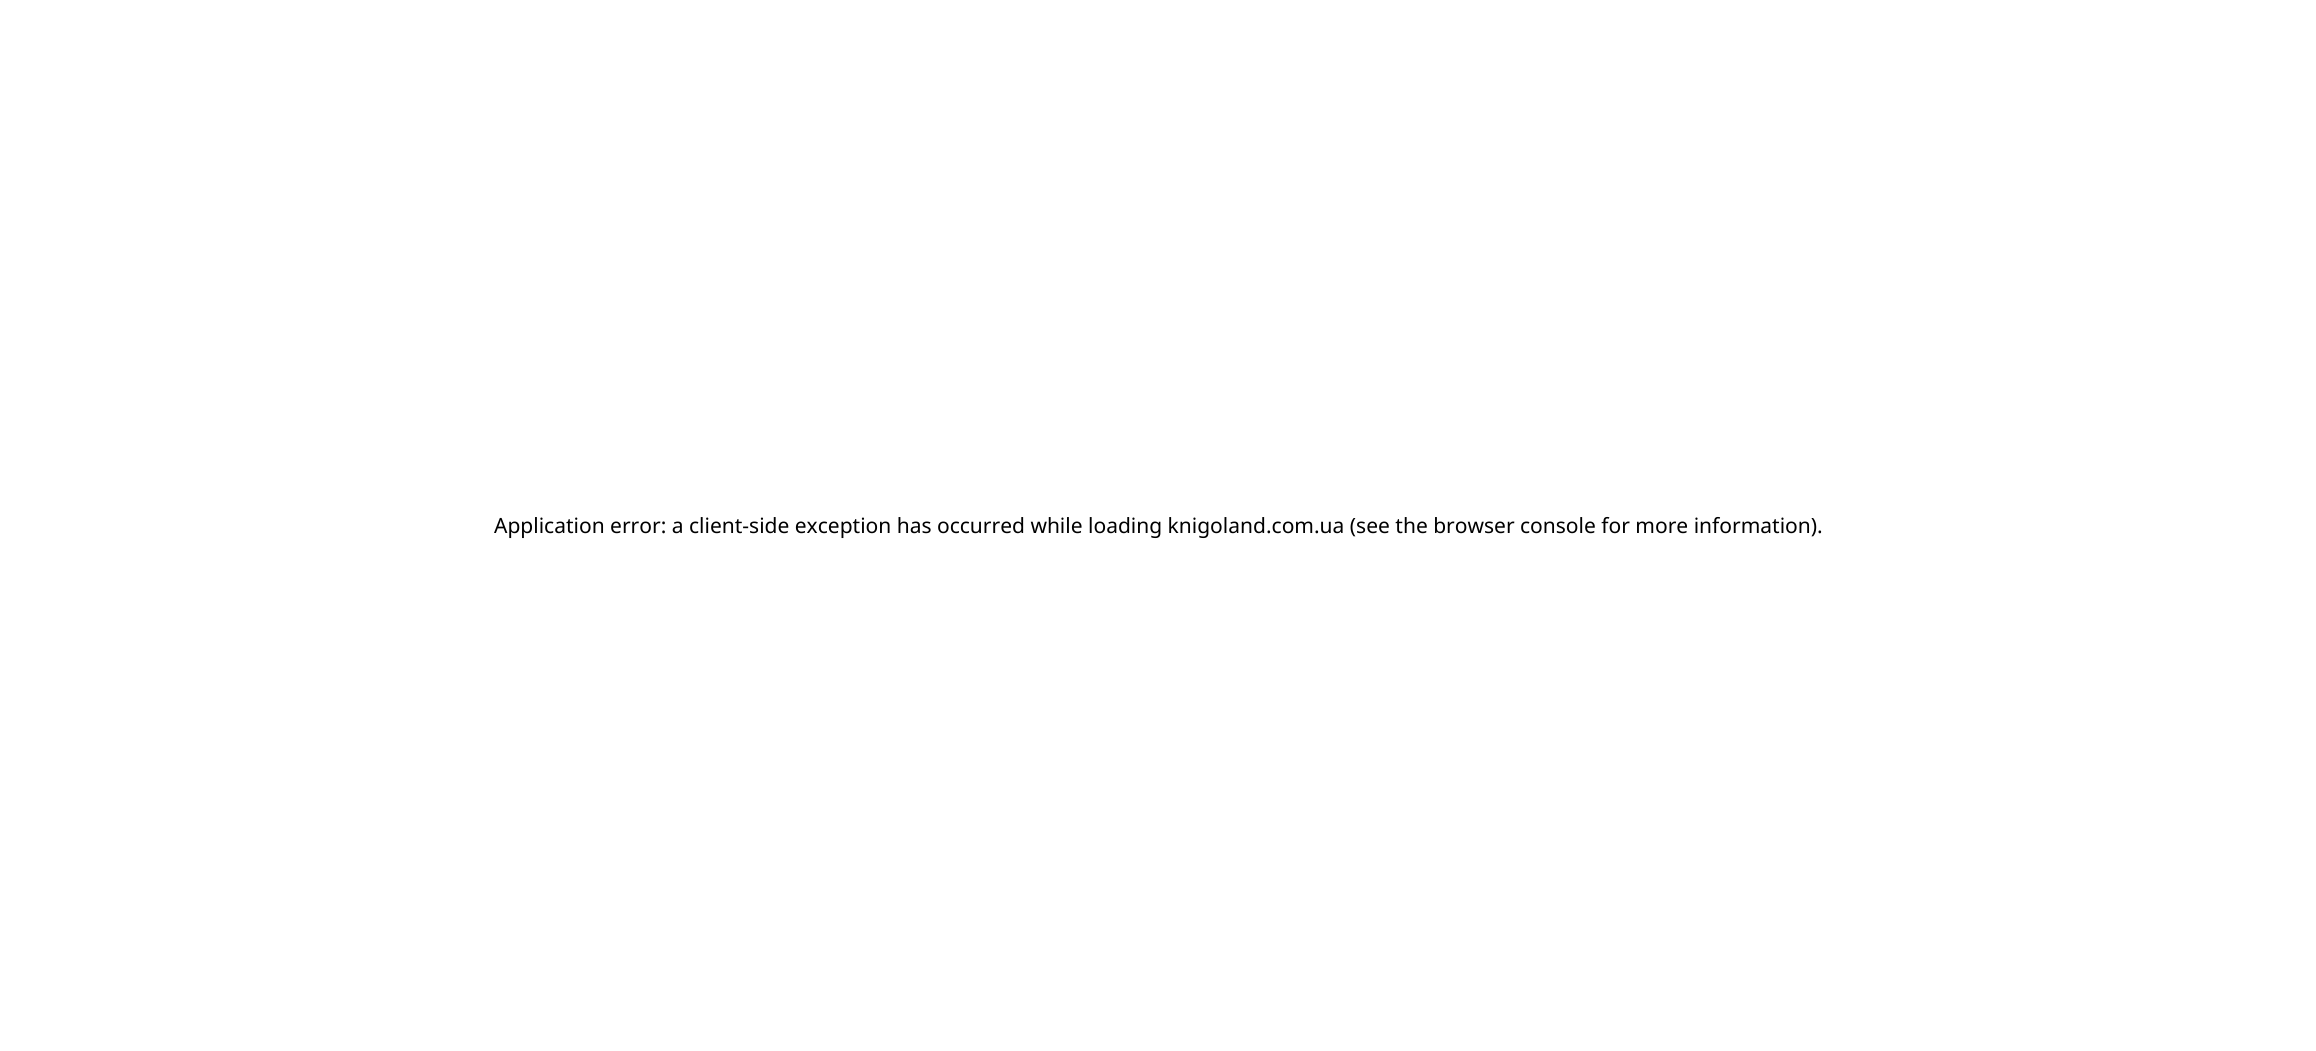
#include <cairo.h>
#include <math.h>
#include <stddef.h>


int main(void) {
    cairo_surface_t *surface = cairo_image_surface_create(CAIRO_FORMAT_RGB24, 2316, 1051);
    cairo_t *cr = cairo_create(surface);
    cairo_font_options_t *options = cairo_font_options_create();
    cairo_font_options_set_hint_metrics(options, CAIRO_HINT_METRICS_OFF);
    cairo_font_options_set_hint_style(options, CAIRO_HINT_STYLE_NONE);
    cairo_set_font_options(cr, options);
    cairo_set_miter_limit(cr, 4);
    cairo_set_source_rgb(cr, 1, 1, 1);
    cairo_paint(cr);
    cairo_select_font_face(cr, "Noto Sans", CAIRO_FONT_SLANT_NORMAL, CAIRO_FONT_WEIGHT_NORMAL);
    cairo_set_font_size(cr, 21);
    cairo_set_source_rgb(cr, 0, 0, 0);
    cairo_move_to(cr, 494, 533);
    cairo_show_text(cr, "Application error: a client-side exception has occurred while loading knigoland.com.ua (see the browser console for more information).");
    cairo_surface_write_to_png(surface, "page.png");
    cairo_font_options_destroy(options);
    cairo_destroy(cr);
    cairo_surface_destroy(surface);
    return 0;
}
